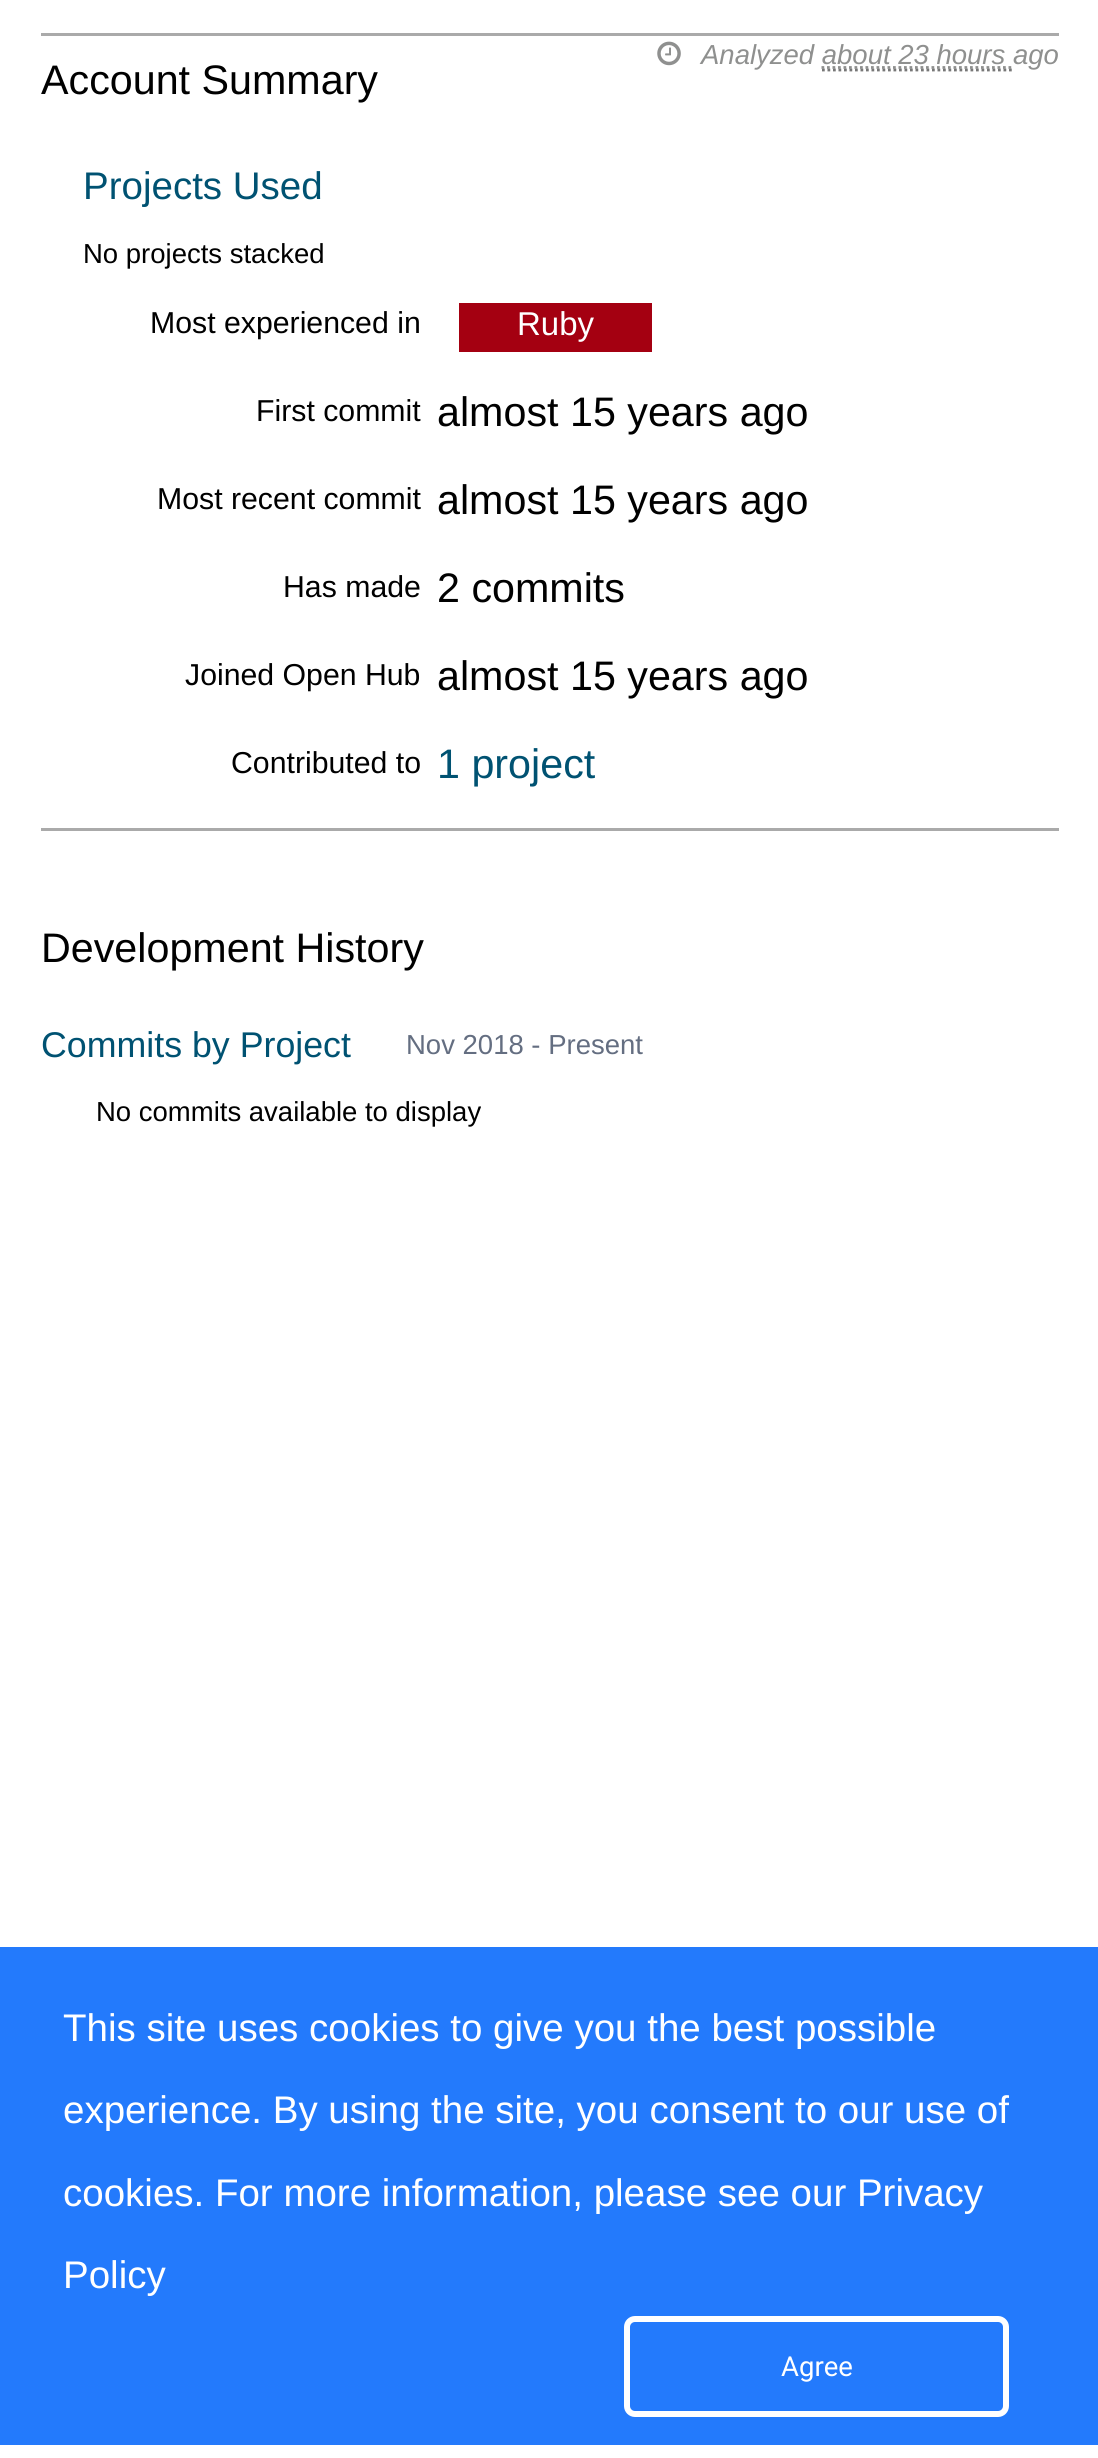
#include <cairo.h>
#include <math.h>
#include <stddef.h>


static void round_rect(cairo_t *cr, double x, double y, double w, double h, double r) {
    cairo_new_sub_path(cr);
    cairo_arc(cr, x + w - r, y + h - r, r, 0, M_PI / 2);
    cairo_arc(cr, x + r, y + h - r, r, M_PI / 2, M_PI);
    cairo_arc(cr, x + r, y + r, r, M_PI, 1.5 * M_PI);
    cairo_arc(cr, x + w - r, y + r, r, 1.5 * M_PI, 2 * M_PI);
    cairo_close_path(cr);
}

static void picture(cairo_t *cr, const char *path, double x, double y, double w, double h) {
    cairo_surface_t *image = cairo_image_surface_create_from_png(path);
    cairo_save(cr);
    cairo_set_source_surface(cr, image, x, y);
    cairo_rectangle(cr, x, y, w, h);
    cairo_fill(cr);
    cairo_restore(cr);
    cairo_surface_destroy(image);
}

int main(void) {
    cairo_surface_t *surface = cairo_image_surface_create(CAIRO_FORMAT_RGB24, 1098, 2458);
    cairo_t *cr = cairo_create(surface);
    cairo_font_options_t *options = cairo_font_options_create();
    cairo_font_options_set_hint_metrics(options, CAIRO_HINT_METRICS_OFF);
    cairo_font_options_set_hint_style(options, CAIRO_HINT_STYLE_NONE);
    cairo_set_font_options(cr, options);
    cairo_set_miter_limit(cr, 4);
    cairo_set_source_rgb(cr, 1, 1, 1);
    cairo_paint(cr);
    cairo_set_source_rgb(cr, 0.667, 0.667, 0.667);
    cairo_rectangle(cr, 41, 33, 1018, 3);
    cairo_fill(cr);
    picture(cr, "img1.png", 657, 41, 24, 25);
    cairo_select_font_face(cr, "Liberation Sans", CAIRO_FONT_SLANT_ITALIC, CAIRO_FONT_WEIGHT_NORMAL);
    cairo_set_font_size(cr, 27.5);
    cairo_set_source_rgb(cr, 0.561, 0.565, 0.561);
    cairo_move_to(cr, 701, 64);
    cairo_show_text(cr, "Analyzed about 23 hours ago");
    cairo_new_path(cr);
    cairo_move_to(cr, 822, 70);
    cairo_line_to(cr, 1012, 70);
    cairo_set_source_rgb(cr, 0.467, 0.467, 0.467);
    cairo_set_line_width(cr, 2.8);
    cairo_set_dash(cr, (double[]){2.75, 2.75}, 2, 0);
    cairo_stroke(cr);
    cairo_new_path(cr);
    cairo_move_to(cr, 821.5, 67.5);
    cairo_line_to(cr, 1013, 67.5);
    cairo_set_source_rgb(cr, 0.561, 0.565, 0.561);
    cairo_stroke(cr);
    cairo_select_font_face(cr, "Liberation Sans", CAIRO_FONT_SLANT_NORMAL, CAIRO_FONT_WEIGHT_NORMAL);
    cairo_set_font_size(cr, 41.25);
    cairo_set_source_rgb(cr, 0, 0, 0);
    cairo_move_to(cr, 41, 94);
    cairo_show_text(cr, "Account Summary");
    cairo_set_font_size(cr, 38.5);
    cairo_set_source_rgb(cr, 0, 0.322, 0.447);
    cairo_move_to(cr, 83, 199);
    cairo_show_text(cr, "Projects Used");
    cairo_set_font_size(cr, 27.5);
    cairo_set_source_rgb(cr, 0, 0, 0);
    cairo_move_to(cr, 83, 263);
    cairo_show_text(cr, "No projects stacked");
    cairo_set_font_size(cr, 30.25);
    cairo_move_to(cr, 150, 333);
    cairo_show_text(cr, "Most experienced in");
    cairo_set_source_rgb(cr, 0.643, 0, 0.067);
    cairo_rectangle(cr, 459, 303, 193, 49);
    cairo_fill(cr);
    cairo_set_font_size(cr, 33);
    cairo_set_source_rgb(cr, 1, 1, 1);
    cairo_move_to(cr, 517, 335);
    cairo_show_text(cr, "Ruby");
    cairo_set_font_size(cr, 30.25);
    cairo_set_source_rgb(cr, 0, 0, 0);
    cairo_move_to(cr, 256, 421);
    cairo_show_text(cr, "First commit");
    cairo_set_font_size(cr, 41.25);
    cairo_move_to(cr, 437, 426);
    cairo_show_text(cr, "almost 15 years ago");
    cairo_set_font_size(cr, 30.25);
    cairo_move_to(cr, 157, 509);
    cairo_show_text(cr, "Most recent commit");
    cairo_set_font_size(cr, 41.25);
    cairo_move_to(cr, 437, 514);
    cairo_show_text(cr, "almost 15 years ago");
    cairo_set_font_size(cr, 30.25);
    cairo_move_to(cr, 283, 597);
    cairo_show_text(cr, "Has made");
    cairo_set_font_size(cr, 41.25);
    cairo_move_to(cr, 437, 602);
    cairo_show_text(cr, "2 commits");
    cairo_set_font_size(cr, 30.25);
    cairo_move_to(cr, 185, 685);
    cairo_show_text(cr, "Joined Open Hub");
    cairo_set_font_size(cr, 41.25);
    cairo_move_to(cr, 437, 690);
    cairo_show_text(cr, "almost 15 years ago");
    cairo_set_font_size(cr, 30.25);
    cairo_move_to(cr, 231, 773);
    cairo_show_text(cr, "Contributed to");
    cairo_set_font_size(cr, 41.25);
    cairo_set_source_rgb(cr, 0, 0.322, 0.447);
    cairo_move_to(cr, 437, 778);
    cairo_show_text(cr, "1 project");
    cairo_set_source_rgb(cr, 0.667, 0.667, 0.667);
    cairo_rectangle(cr, 41, 828, 1018, 3);
    cairo_fill(cr);
    cairo_set_source_rgb(cr, 0, 0, 0);
    cairo_move_to(cr, 41, 962);
    cairo_show_text(cr, "Development History");
    cairo_set_font_size(cr, 35.75);
    cairo_set_source_rgb(cr, 0, 0.322, 0.447);
    cairo_move_to(cr, 41, 1057);
    cairo_show_text(cr, "Commits by Project");
    cairo_set_font_size(cr, 27.5);
    cairo_set_source_rgb(cr, 0.392, 0.431, 0.506);
    cairo_move_to(cr, 406, 1054);
    cairo_show_text(cr, "Nov 2018 - Present");
    cairo_set_source_rgb(cr, 0, 0, 0);
    cairo_move_to(cr, 96, 1121);
    cairo_show_text(cr, "No commits available to display");
    cairo_set_source_rgb(cr, 0.137, 0.478, 0.988);
    cairo_rectangle(cr, 0, 1947, 1098, 498);
    cairo_fill(cr);
    cairo_set_font_size(cr, 38.5);
    cairo_set_source_rgb(cr, 1, 1, 1);
    cairo_move_to(cr, 63, 2041);
    cairo_show_text(cr, "This site uses cookies to give you the best possible");
    cairo_move_to(cr, 63, 2123);
    cairo_show_text(cr, "experience. By using the site, you consent to our use of");
    cairo_move_to(cr, 63, 2206);
    cairo_show_text(cr, "cookies. For more information, please see our Privacy");
    cairo_move_to(cr, 63, 2288);
    cairo_show_text(cr, "Policy");
    round_rect(cr, 627, 2319, 379, 95, 8);
    cairo_set_line_width(cr, 6);
    cairo_set_dash(cr, NULL, 0, 0);
    cairo_stroke(cr);
    cairo_select_font_face(cr, "Roboto", CAIRO_FONT_SLANT_NORMAL, CAIRO_FONT_WEIGHT_NORMAL);
    cairo_set_font_size(cr, 27.5);
    cairo_move_to(cr, 781, 2376);
    cairo_show_text(cr, "Agree");
    cairo_surface_write_to_png(surface, "page.png");
    cairo_font_options_destroy(options);
    cairo_destroy(cr);
    cairo_surface_destroy(surface);
    return 0;
}
